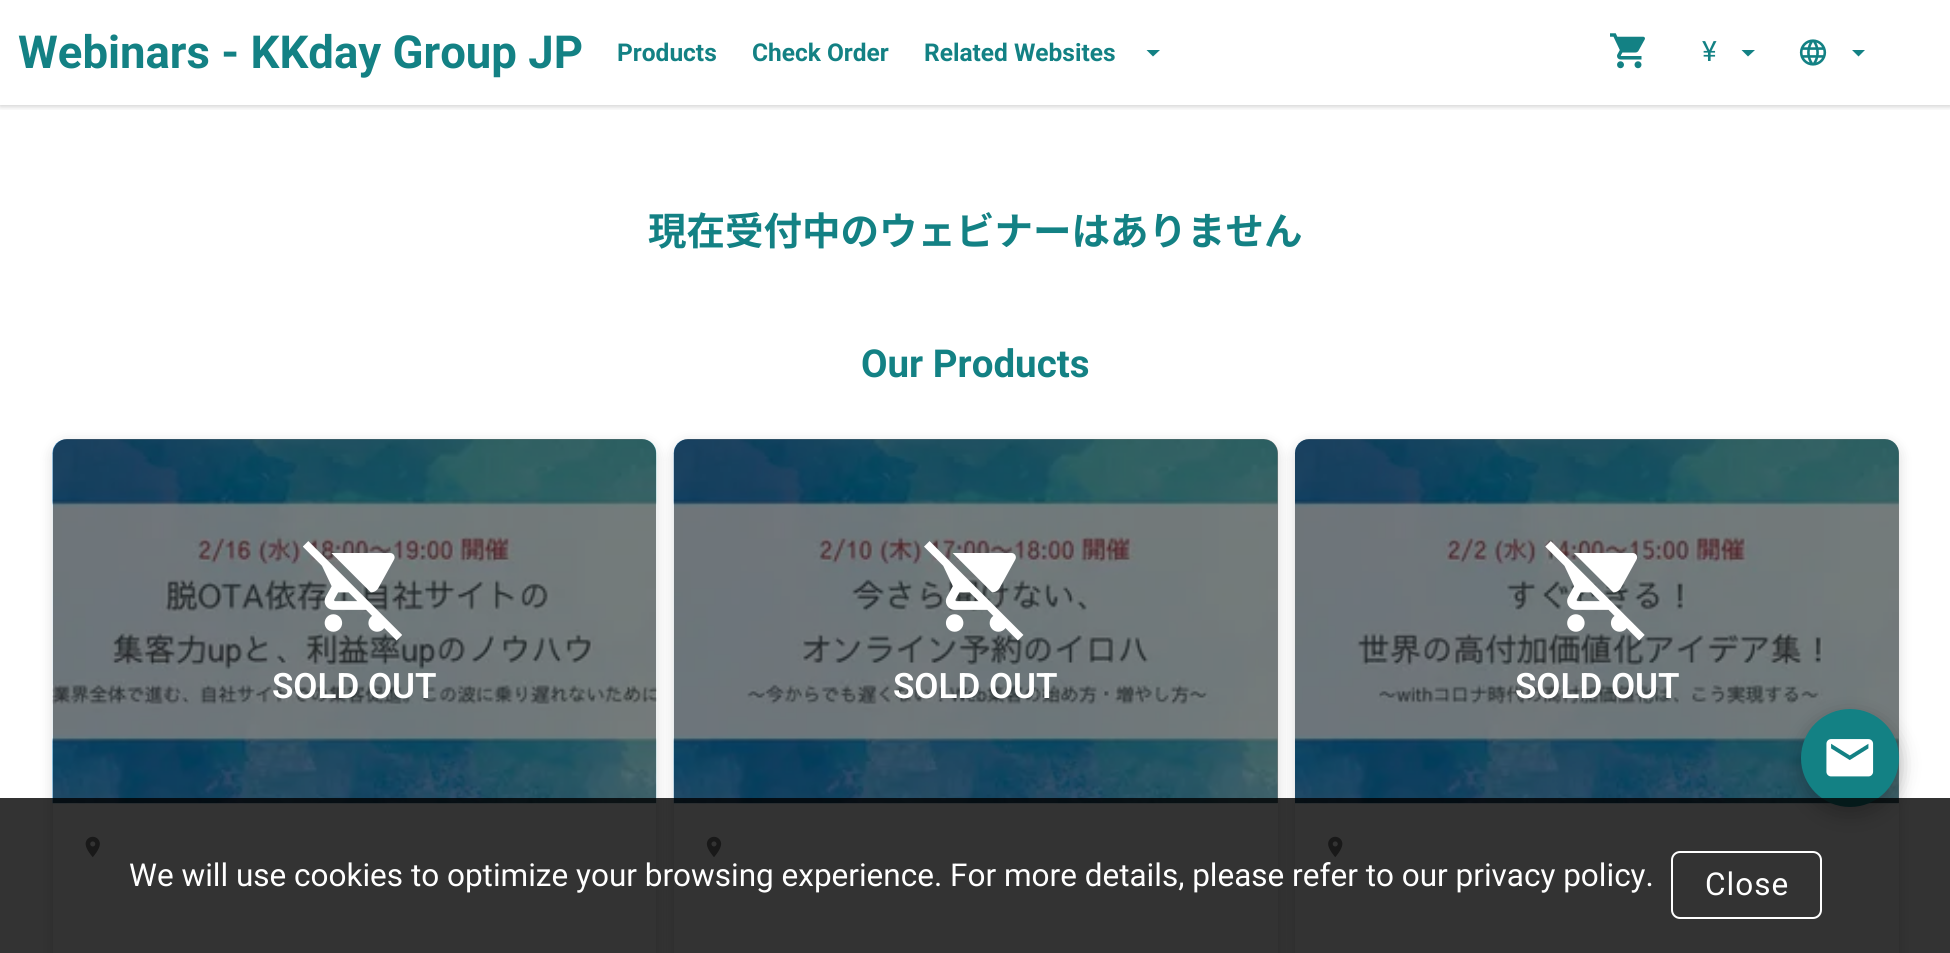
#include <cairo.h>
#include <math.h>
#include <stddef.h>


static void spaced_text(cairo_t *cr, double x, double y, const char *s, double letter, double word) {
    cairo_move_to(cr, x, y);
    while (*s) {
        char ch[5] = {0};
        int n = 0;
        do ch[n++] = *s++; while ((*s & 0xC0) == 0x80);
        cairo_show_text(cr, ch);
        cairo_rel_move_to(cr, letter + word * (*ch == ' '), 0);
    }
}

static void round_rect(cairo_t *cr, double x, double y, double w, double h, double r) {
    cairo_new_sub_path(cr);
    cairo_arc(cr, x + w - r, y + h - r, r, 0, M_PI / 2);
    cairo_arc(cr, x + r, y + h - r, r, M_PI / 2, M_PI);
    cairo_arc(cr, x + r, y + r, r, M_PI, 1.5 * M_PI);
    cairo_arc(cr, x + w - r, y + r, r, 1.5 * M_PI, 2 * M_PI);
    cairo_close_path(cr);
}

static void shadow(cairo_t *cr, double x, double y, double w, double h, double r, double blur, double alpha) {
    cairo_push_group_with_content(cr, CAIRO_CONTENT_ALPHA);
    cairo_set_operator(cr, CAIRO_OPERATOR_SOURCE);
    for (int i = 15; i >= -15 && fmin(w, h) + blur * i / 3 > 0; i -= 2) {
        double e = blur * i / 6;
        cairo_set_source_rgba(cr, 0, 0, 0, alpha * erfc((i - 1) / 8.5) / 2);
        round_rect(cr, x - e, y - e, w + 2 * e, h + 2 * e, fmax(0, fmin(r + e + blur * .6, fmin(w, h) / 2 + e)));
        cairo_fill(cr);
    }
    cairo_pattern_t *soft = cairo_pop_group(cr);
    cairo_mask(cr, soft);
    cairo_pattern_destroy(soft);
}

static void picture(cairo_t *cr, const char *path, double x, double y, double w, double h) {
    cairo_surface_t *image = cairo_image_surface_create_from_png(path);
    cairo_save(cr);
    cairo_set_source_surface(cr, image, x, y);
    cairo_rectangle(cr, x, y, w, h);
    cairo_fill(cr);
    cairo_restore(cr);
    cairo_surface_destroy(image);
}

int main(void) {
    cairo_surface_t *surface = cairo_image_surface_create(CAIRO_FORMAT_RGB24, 1950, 953);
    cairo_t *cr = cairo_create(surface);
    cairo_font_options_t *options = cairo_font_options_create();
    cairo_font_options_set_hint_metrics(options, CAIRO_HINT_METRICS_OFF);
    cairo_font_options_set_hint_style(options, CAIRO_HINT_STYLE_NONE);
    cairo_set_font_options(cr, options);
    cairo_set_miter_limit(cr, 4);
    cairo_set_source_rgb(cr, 1, 1, 1);
    cairo_paint(cr);
    cairo_save(cr);
    cairo_rectangle(cr, 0, 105, 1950, 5);
    cairo_clip(cr);
    cairo_set_source_rgb(cr, 0, 0, 0);
    shadow(cr, 0, 0, 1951, 105, 0, 3.5, 0.28);
    cairo_restore(cr);
    cairo_select_font_face(cr, "Roboto", CAIRO_FONT_SLANT_NORMAL, CAIRO_FONT_WEIGHT_BOLD);
    cairo_set_font_size(cr, 45.5);
    cairo_set_source_rgb(cr, 0.075, 0.506, 0.518);
    cairo_move_to(cr, 18, 68);
    cairo_show_text(cr, "Webinars - KKday Group JP");
    cairo_set_font_size(cr, 24.5);
    cairo_move_to(cr, 617, 61);
    cairo_show_text(cr, "Products");
    cairo_move_to(cr, 752, 61);
    cairo_show_text(cr, "Check Order");
    cairo_move_to(cr, 924, 61);
    cairo_show_text(cr, "Related Websites");
    cairo_new_path(cr);
    cairo_move_to(cr, 1146.5, 50);
    cairo_line_to(cr, 1153, 56.5);
    cairo_line_to(cr, 1160, 50);
    cairo_close_path(cr);
    cairo_fill(cr);
    picture(cr, "img1.png", 1610, 33, 35, 36);
    cairo_select_font_face(cr, "Roboto", CAIRO_FONT_SLANT_NORMAL, CAIRO_FONT_WEIGHT_NORMAL);
    cairo_set_font_size(cr, 28);
    cairo_move_to(cr, 1702, 61);
    cairo_show_text(cr, "¥");
    cairo_new_path(cr);
    cairo_move_to(cr, 1741.5, 50);
    cairo_line_to(cr, 1748, 56.5);
    cairo_line_to(cr, 1755, 50);
    cairo_close_path(cr);
    cairo_fill(cr);
    picture(cr, "img2.png", 1799, 39, 28, 27);
    cairo_new_path(cr);
    cairo_move_to(cr, 1852, 50);
    cairo_line_to(cr, 1858.5, 56.5);
    cairo_line_to(cr, 1865, 50);
    cairo_close_path(cr);
    cairo_fill(cr);
    cairo_select_font_face(cr, "Noto Sans TC", CAIRO_FONT_SLANT_NORMAL, CAIRO_FONT_WEIGHT_BOLD);
    cairo_set_font_size(cr, 38.5);
    cairo_move_to(cr, 648, 245);
    cairo_show_text(cr, "現在受付中のウェビナーはありません");
    cairo_select_font_face(cr, "Roboto", CAIRO_FONT_SLANT_NORMAL, CAIRO_FONT_WEIGHT_BOLD);
    cairo_move_to(cr, 861, 377);
    cairo_show_text(cr, "Our Products");
    cairo_save(cr);
    cairo_set_fill_rule(cr, CAIRO_FILL_RULE_EVEN_ODD);
    cairo_new_path(cr);
    cairo_move_to(cr, 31, 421);
    cairo_line_to(cr, 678, 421);
    cairo_line_to(cr, 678, 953);
    cairo_line_to(cr, 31, 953);
    cairo_close_path(cr);
    cairo_move_to(cr, 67, 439);
    cairo_line_to(cr, 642, 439);
    cairo_curve_to(cr, 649.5, 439, 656, 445.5, 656, 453);
    cairo_line_to(cr, 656, 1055);
    cairo_curve_to(cr, 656, 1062.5, 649.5, 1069, 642, 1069);
    cairo_line_to(cr, 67, 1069);
    cairo_curve_to(cr, 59.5, 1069, 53, 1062.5, 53, 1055);
    cairo_line_to(cr, 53, 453);
    cairo_curve_to(cr, 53, 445.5, 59.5, 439, 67, 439);
    cairo_close_path(cr);
    cairo_clip(cr);
    cairo_set_source_rgb(cr, 0, 0, 0);
    shadow(cr, 53, 443, 603, 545, 14, 7, 0.15);
    cairo_restore(cr);
    cairo_save(cr);
    cairo_set_fill_rule(cr, CAIRO_FILL_RULE_EVEN_ODD);
    cairo_new_path(cr);
    cairo_move_to(cr, 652, 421);
    cairo_line_to(cr, 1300, 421);
    cairo_line_to(cr, 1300, 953);
    cairo_line_to(cr, 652, 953);
    cairo_close_path(cr);
    cairo_move_to(cr, 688, 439);
    cairo_line_to(cr, 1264, 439);
    cairo_curve_to(cr, 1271.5, 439, 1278, 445.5, 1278, 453);
    cairo_line_to(cr, 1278, 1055);
    cairo_curve_to(cr, 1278, 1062.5, 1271.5, 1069, 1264, 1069);
    cairo_line_to(cr, 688, 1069);
    cairo_curve_to(cr, 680.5, 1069, 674, 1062.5, 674, 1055);
    cairo_line_to(cr, 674, 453);
    cairo_curve_to(cr, 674, 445.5, 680.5, 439, 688, 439);
    cairo_close_path(cr);
    cairo_clip(cr);
    cairo_set_source_rgb(cr, 0, 0, 0);
    shadow(cr, 674, 443, 604, 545, 14, 7, 0.15);
    cairo_restore(cr);
    picture(cr, "img3.png", 52, 439, 605, 365);
    cairo_set_source_rgba(cr, 0, 0, 0, 0.5);
    cairo_new_path(cr);
    cairo_move_to(cr, 67, 439);
    cairo_line_to(cr, 642, 439);
    cairo_curve_to(cr, 649.5, 439, 656, 445.5, 656, 453);
    cairo_line_to(cr, 656, 803);
    cairo_line_to(cr, 53, 803);
    cairo_line_to(cr, 53, 453);
    cairo_curve_to(cr, 53, 445.5, 59.5, 439, 67, 439);
    cairo_close_path(cr);
    cairo_fill(cr);
    picture(cr, "img4.png", 303, 541, 99, 100);
    cairo_select_font_face(cr, "Roboto SemiBold", CAIRO_FONT_SLANT_NORMAL, CAIRO_FONT_WEIGHT_NORMAL);
    cairo_set_font_size(cr, 35);
    cairo_set_source_rgb(cr, 1, 1, 1);
    cairo_move_to(cr, 272, 698);
    cairo_show_text(cr, "SOLD OUT");
    picture(cr, "img5.png", 85, 836, 15, 22);
    cairo_save(cr);
    cairo_set_fill_rule(cr, CAIRO_FILL_RULE_EVEN_ODD);
    cairo_new_path(cr);
    cairo_move_to(cr, 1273, 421);
    cairo_line_to(cr, 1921, 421);
    cairo_line_to(cr, 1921, 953);
    cairo_line_to(cr, 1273, 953);
    cairo_close_path(cr);
    cairo_move_to(cr, 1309, 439);
    cairo_line_to(cr, 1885, 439);
    cairo_curve_to(cr, 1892.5, 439, 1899, 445.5, 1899, 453);
    cairo_line_to(cr, 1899, 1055);
    cairo_curve_to(cr, 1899, 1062.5, 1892.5, 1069, 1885, 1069);
    cairo_line_to(cr, 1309, 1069);
    cairo_curve_to(cr, 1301.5, 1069, 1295, 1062.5, 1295, 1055);
    cairo_line_to(cr, 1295, 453);
    cairo_curve_to(cr, 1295, 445.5, 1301.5, 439, 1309, 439);
    cairo_close_path(cr);
    cairo_clip(cr);
    cairo_set_source_rgb(cr, 0, 0, 0);
    shadow(cr, 1295, 443, 604, 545, 14, 7, 0.15);
    cairo_restore(cr);
    picture(cr, "img6.png", 673, 439, 605, 365);
    cairo_set_source_rgba(cr, 0, 0, 0, 0.5);
    cairo_new_path(cr);
    cairo_move_to(cr, 688, 439);
    cairo_line_to(cr, 1264, 439);
    cairo_curve_to(cr, 1271.5, 439, 1278, 445.5, 1278, 453);
    cairo_line_to(cr, 1278, 803);
    cairo_line_to(cr, 674, 803);
    cairo_line_to(cr, 674, 453);
    cairo_curve_to(cr, 674, 445.5, 680.5, 439, 688, 439);
    cairo_close_path(cr);
    cairo_fill(cr);
    picture(cr, "img7.png", 924, 541, 100, 100);
    cairo_set_source_rgb(cr, 1, 1, 1);
    cairo_move_to(cr, 893, 698);
    cairo_show_text(cr, "SOLD OUT");
    picture(cr, "img8.png", 706, 836, 16, 21);
    picture(cr, "img9.png", 1294, 439, 605, 365);
    cairo_set_source_rgba(cr, 0, 0, 0, 0.5);
    cairo_new_path(cr);
    cairo_move_to(cr, 1309, 439);
    cairo_line_to(cr, 1885, 439);
    cairo_curve_to(cr, 1892.5, 439, 1899, 445.5, 1899, 453);
    cairo_line_to(cr, 1899, 803);
    cairo_line_to(cr, 1295, 803);
    cairo_line_to(cr, 1295, 453);
    cairo_curve_to(cr, 1295, 445.5, 1301.5, 439, 1309, 439);
    cairo_close_path(cr);
    cairo_fill(cr);
    picture(cr, "img10.png", 1545, 541, 100, 100);
    cairo_set_source_rgb(cr, 1, 1, 1);
    cairo_move_to(cr, 1515, 698);
    cairo_show_text(cr, "SOLD OUT");
    picture(cr, "img11.png", 1328, 836, 15, 22);
    cairo_set_source_rgb(cr, 0, 0, 0);
    shadow(cr, 1801, 716, 98, 98, 49, 10.5, 0.25);
    cairo_set_source_rgb(cr, 0.075, 0.506, 0.518);
    cairo_arc(cr, 1850, 758, 49, 0, 2 * M_PI);
    cairo_fill(cr);
    picture(cr, "img12.png", 1826, 739, 48, 38);
    cairo_set_source_rgba(cr, 0, 0, 0, 0.8);
    cairo_rectangle(cr, 0, 798, 1950, 155);
    cairo_fill(cr);
    cairo_select_font_face(cr, "Roboto", CAIRO_FONT_SLANT_NORMAL, CAIRO_FONT_WEIGHT_NORMAL);
    cairo_set_font_size(cr, 31.5);
    cairo_set_source_rgb(cr, 1, 1, 1);
    cairo_move_to(cr, 129, 886);
    cairo_show_text(cr, "We will use cookies to optimize your browsing experience. For more details, please refer to our privacy policy.");
    round_rect(cr, 1672, 852, 149, 66, 8);
    cairo_stroke(cr);
    spaced_text(cr, 1705, 895, "Close", 1, 0);
    cairo_surface_write_to_png(surface, "page.png");
    cairo_font_options_destroy(options);
    cairo_destroy(cr);
    cairo_surface_destroy(surface);
    return 0;
}
